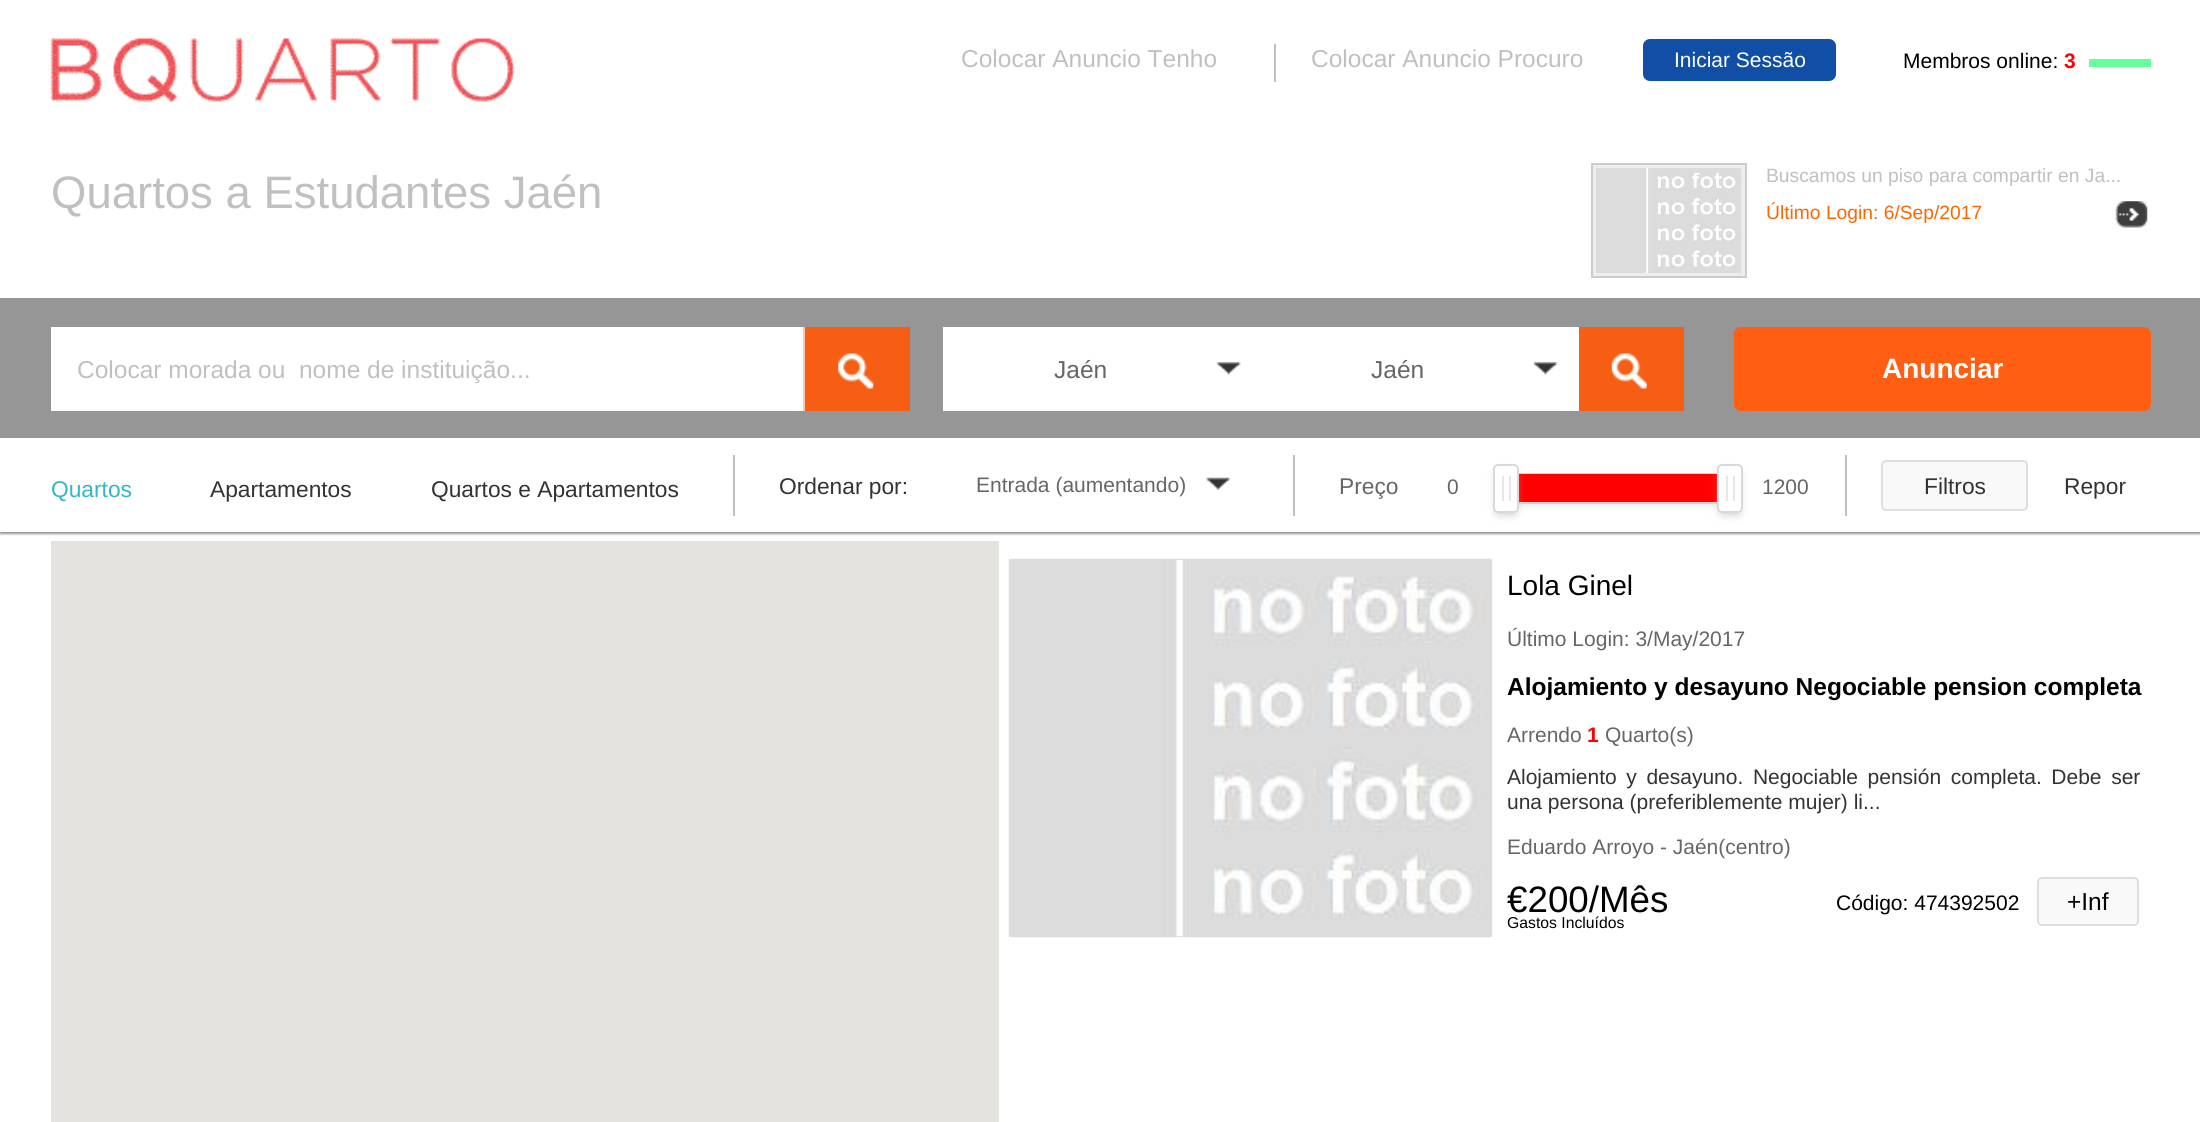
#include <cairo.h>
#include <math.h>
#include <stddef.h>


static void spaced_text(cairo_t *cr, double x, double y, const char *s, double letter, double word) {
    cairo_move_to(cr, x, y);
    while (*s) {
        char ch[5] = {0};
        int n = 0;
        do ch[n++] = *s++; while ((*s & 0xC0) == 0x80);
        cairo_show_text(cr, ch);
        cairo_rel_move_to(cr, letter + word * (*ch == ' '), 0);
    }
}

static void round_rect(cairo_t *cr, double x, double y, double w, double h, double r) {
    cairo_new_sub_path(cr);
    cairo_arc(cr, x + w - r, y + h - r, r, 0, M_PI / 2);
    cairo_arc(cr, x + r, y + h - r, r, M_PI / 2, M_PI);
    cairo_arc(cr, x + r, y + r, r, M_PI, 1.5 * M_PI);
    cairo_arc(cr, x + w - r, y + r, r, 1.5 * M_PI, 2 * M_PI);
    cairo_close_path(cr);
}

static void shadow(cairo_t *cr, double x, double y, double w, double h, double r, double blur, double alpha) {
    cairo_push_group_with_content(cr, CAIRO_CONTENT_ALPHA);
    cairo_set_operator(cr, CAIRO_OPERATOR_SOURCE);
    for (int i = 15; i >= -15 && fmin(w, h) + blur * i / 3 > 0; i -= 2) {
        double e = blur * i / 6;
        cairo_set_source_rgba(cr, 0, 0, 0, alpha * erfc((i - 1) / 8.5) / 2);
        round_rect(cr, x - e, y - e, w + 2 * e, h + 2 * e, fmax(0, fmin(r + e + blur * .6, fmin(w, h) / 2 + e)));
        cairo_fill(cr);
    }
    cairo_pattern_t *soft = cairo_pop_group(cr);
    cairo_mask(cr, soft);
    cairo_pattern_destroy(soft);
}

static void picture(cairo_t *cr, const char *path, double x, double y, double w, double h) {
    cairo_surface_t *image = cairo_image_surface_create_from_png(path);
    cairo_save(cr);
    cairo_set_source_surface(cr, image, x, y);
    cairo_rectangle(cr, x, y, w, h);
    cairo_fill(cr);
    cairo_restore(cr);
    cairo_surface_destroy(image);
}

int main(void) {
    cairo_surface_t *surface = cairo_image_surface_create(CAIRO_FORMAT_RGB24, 2200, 1122);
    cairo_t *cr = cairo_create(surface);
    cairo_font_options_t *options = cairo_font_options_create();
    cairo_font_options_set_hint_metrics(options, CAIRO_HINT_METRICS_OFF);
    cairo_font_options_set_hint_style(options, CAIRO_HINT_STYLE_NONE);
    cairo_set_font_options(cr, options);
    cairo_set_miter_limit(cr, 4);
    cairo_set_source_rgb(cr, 1, 1, 1);
    cairo_paint(cr);
    picture(cr, "img1.png", 50, 38, 465, 64);
    cairo_select_font_face(cr, "Liberation Sans", CAIRO_FONT_SLANT_NORMAL, CAIRO_FONT_WEIGHT_NORMAL);
    cairo_set_font_size(cr, 24.5);
    cairo_set_source_rgb(cr, 0.753, 0.753, 0.753);
    cairo_move_to(cr, 961, 67);
    cairo_show_text(cr, "Colocar Anuncio Tenho");
    cairo_rectangle(cr, 1274, 44, 2, 38);
    cairo_fill(cr);
    cairo_move_to(cr, 1311, 67);
    cairo_show_text(cr, "Colocar Anuncio Procuro");
    cairo_set_source_rgb(cr, 0.063, 0.31, 0.647);
    round_rect(cr, 1644, 40, 191, 40, 6);
    cairo_fill_preserve(cr);
    cairo_stroke(cr);
    cairo_set_font_size(cr, 21);
    cairo_set_source_rgb(cr, 1, 1, 1);
    cairo_move_to(cr, 1674, 67);
    cairo_show_text(cr, "Iniciar Sessão");
    cairo_set_source_rgb(cr, 0, 0, 0);
    cairo_move_to(cr, 1903, 68);
    cairo_show_text(cr, "Membros online:");
    cairo_select_font_face(cr, "Liberation Sans", CAIRO_FONT_SLANT_NORMAL, CAIRO_FONT_WEIGHT_BOLD);
    cairo_set_source_rgb(cr, 1, 0, 0);
    cairo_move_to(cr, 2064, 68);
    cairo_show_text(cr, "3");
    cairo_set_source_rgb(cr, 0.4, 1, 0.6);
    cairo_rectangle(cr, 2089, 59, 62, 8);
    cairo_fill(cr);
    cairo_select_font_face(cr, "Liberation Sans", CAIRO_FONT_SLANT_NORMAL, CAIRO_FONT_WEIGHT_NORMAL);
    cairo_set_font_size(cr, 45.5);
    cairo_set_source_rgb(cr, 0.753, 0.753, 0.753);
    cairo_move_to(cr, 51, 208);
    cairo_show_text(cr, "Quartos a Estudantes Jaén");
    cairo_set_source_rgb(cr, 0.933, 0.933, 0.933);
    cairo_rectangle(cr, 1592, 164, 154, 113);
    cairo_fill_preserve(cr);
    cairo_set_source_rgb(cr, 0.8, 0.8, 0.8);
    cairo_stroke(cr);
    picture(cr, "img2.png", 1596, 168, 146, 105);
    cairo_set_font_size(cr, 19.25);
    cairo_set_source_rgb(cr, 0.753, 0.753, 0.753);
    cairo_move_to(cr, 1766, 182);
    cairo_show_text(cr, "Buscamos un piso para compartir en Ja...");
    cairo_set_source_rgb(cr, 1, 0.4, 0);
    cairo_move_to(cr, 1766, 219);
    cairo_show_text(cr, "Último Login: 6/Sep/2017");
    picture(cr, "img3.png", 2115, 201, 33, 27);
    cairo_set_source_rgb(cr, 0.588, 0.588, 0.588);
    cairo_rectangle(cr, 0, 298, 2200, 140);
    cairo_fill(cr);
    cairo_set_source_rgb(cr, 1, 1, 1);
    cairo_rectangle(cr, 51, 327, 752, 84);
    cairo_fill(cr);
    cairo_set_source_rgb(cr, 0.988, 0.78, 0.682);
    cairo_rectangle(cr, 803, 327, 2, 84);
    cairo_fill(cr);
    cairo_save(cr);
    cairo_rectangle(cr, 77, 355, 700, 28);
    cairo_clip(cr);
    cairo_set_font_size(cr, 24.5);
    cairo_set_source_rgb(cr, 0.753, 0.753, 0.753);
    cairo_move_to(cr, 77, 378);
    cairo_show_text(cr, "Colocar morada ou  nome de instituição...");
    cairo_restore(cr);
    cairo_set_source_rgb(cr, 0.961, 0.369, 0.075);
    cairo_rectangle(cr, 805, 327, 105, 84);
    cairo_fill(cr);
    picture(cr, "img4.png", 838, 353, 36, 36);
    cairo_set_source_rgb(cr, 1, 1, 1);
    cairo_rectangle(cr, 943, 327, 636, 84);
    cairo_fill(cr);
    cairo_set_font_size(cr, 24.5);
    cairo_set_source_rgb(cr, 0.4, 0.4, 0.4);
    cairo_move_to(cr, 1054, 378);
    cairo_show_text(cr, "Jaén");
    picture(cr, "img5.png", 1216, 362, 25, 13);
    cairo_move_to(cr, 1371, 378);
    cairo_show_text(cr, "Jaén");
    picture(cr, "img6.png", 1533, 362, 25, 13);
    cairo_set_source_rgb(cr, 0.961, 0.369, 0.075);
    cairo_rectangle(cr, 1579, 327, 105, 84);
    cairo_fill(cr);
    picture(cr, "img7.png", 1611, 353, 36, 36);
    cairo_set_source_rgb(cr, 1, 0.369, 0.075);
    round_rect(cr, 1735, 328, 415, 82, 6);
    cairo_fill_preserve(cr);
    cairo_stroke(cr);
    cairo_select_font_face(cr, "Liberation Sans", CAIRO_FONT_SLANT_NORMAL, CAIRO_FONT_WEIGHT_BOLD);
    cairo_set_font_size(cr, 28);
    cairo_set_source_rgb(cr, 1, 1, 1);
    cairo_move_to(cr, 1882, 378);
    cairo_show_text(cr, "Anunciar");
    cairo_set_source_rgb(cr, 0.588, 0.588, 0.588);
    shadow(cr, 0, 439, 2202, 95, 0, 1, 1);
    cairo_set_source_rgb(cr, 1, 1, 1);
    cairo_rectangle(cr, 0, 438, 2200, 94);
    cairo_fill(cr);
    cairo_select_font_face(cr, "Liberation Sans", CAIRO_FONT_SLANT_NORMAL, CAIRO_FONT_WEIGHT_NORMAL);
    cairo_set_font_size(cr, 22.75);
    cairo_set_source_rgb(cr, 0.196, 0.718, 0.773);
    cairo_move_to(cr, 51, 497);
    cairo_show_text(cr, "Quartos");
    cairo_set_source_rgb(cr, 0.2, 0.2, 0.2);
    cairo_move_to(cr, 210, 497);
    cairo_show_text(cr, "Apartamentos");
    cairo_move_to(cr, 431, 497);
    cairo_show_text(cr, "Quartos e Apartamentos");
    cairo_set_source_rgb(cr, 0.753, 0.753, 0.753);
    cairo_rectangle(cr, 733, 455, 2, 61);
    cairo_fill(cr);
    cairo_set_source_rgb(cr, 0.2, 0.2, 0.2);
    cairo_move_to(cr, 779, 494);
    cairo_show_text(cr, "Ordenar por:");
    cairo_set_font_size(cr, 21);
    cairo_set_source_rgb(cr, 0.4, 0.4, 0.4);
    cairo_move_to(cr, 976, 492);
    cairo_show_text(cr, "Entrada (aumentando)");
    picture(cr, "img8.png", 1205, 477, 26, 13);
    cairo_set_source_rgb(cr, 0.753, 0.753, 0.753);
    cairo_rectangle(cr, 1293, 455, 2, 61);
    cairo_fill(cr);
    cairo_set_font_size(cr, 22.75);
    cairo_set_source_rgb(cr, 0.4, 0.4, 0.4);
    cairo_move_to(cr, 1339, 494);
    cairo_show_text(cr, "Preço");
    cairo_set_font_size(cr, 21);
    cairo_move_to(cr, 1447, 494);
    cairo_show_text(cr, "0");
    cairo_set_source_rgb(cr, 0.733, 0.733, 0.733);
    shadow(cr, 1514, 487, 210, 14, 0, 5, 1);
    cairo_rectangle(cr, 1506, 474, 226, 29);
    cairo_set_source_rgb(cr, 0.827, 0.827, 0.827);
    cairo_stroke(cr);
    cairo_set_source_rgb(cr, 1, 0, 0);
    cairo_rectangle(cr, 1519, 474, 198, 28);
    cairo_fill(cr);
    cairo_set_source_rgb(cr, 0.733, 0.733, 0.733);
    shadow(cr, 1498, 474, 16, 39, 0, 5, 1);
    cairo_set_source_rgb(cr, 1, 1, 1);
    round_rect(cr, 1494, 465, 24, 47, 4);
    cairo_fill_preserve(cr);
    cairo_set_source_rgb(cr, 0.851, 0.851, 0.851);
    cairo_stroke(cr);
    cairo_set_source_rgb(cr, 0.91, 0.906, 0.902);
    cairo_rectangle(cr, 1502, 476, 2, 25);
    cairo_fill(cr);
    cairo_rectangle(cr, 1509, 476, 2, 25);
    cairo_fill(cr);
    cairo_set_source_rgb(cr, 0.733, 0.733, 0.733);
    shadow(cr, 1722, 474, 16, 39, 0, 5, 1);
    cairo_set_source_rgb(cr, 1, 1, 1);
    round_rect(cr, 1718, 465, 24, 47, 4);
    cairo_fill_preserve(cr);
    cairo_set_source_rgb(cr, 0.851, 0.851, 0.851);
    cairo_stroke(cr);
    cairo_set_source_rgb(cr, 0.91, 0.906, 0.902);
    cairo_rectangle(cr, 1726, 476, 2, 25);
    cairo_fill(cr);
    cairo_rectangle(cr, 1733, 476, 2, 25);
    cairo_fill(cr);
    cairo_set_source_rgb(cr, 0.4, 0.4, 0.4);
    cairo_move_to(cr, 1762, 494);
    cairo_show_text(cr, "1200");
    cairo_set_source_rgb(cr, 0.753, 0.753, 0.753);
    cairo_rectangle(cr, 1845, 455, 2, 61);
    cairo_fill(cr);
    cairo_set_source_rgb(cr, 0.973, 0.973, 0.973);
    round_rect(cr, 1882, 461, 145, 49, 4);
    cairo_fill_preserve(cr);
    cairo_set_source_rgb(cr, 0.878, 0.867, 0.867);
    cairo_stroke(cr);
    cairo_set_font_size(cr, 22.75);
    cairo_set_source_rgb(cr, 0.2, 0.2, 0.2);
    cairo_move_to(cr, 1924, 494);
    cairo_show_text(cr, "Filtros");
    cairo_move_to(cr, 2064, 494);
    cairo_show_text(cr, "Repor");
    cairo_set_source_rgb(cr, 0.898, 0.89, 0.875);
    cairo_rectangle(cr, 51, 541, 948, 581);
    cairo_fill(cr);
    cairo_set_source_rgb(cr, 0.6, 0.6, 0.6);
    shadow(cr, 1010, 560, 481, 376, 0, 1, 1);
    picture(cr, "img9.png", 1009, 560, 482, 377);
    cairo_set_font_size(cr, 28);
    cairo_set_source_rgb(cr, 0, 0, 0);
    cairo_move_to(cr, 1507, 595);
    cairo_show_text(cr, "Lola Ginel");
    cairo_set_font_size(cr, 21);
    cairo_set_source_rgb(cr, 0.4, 0.4, 0.4);
    cairo_move_to(cr, 1507, 646);
    cairo_show_text(cr, "Último Login: 3/May/2017");
    cairo_select_font_face(cr, "Liberation Sans", CAIRO_FONT_SLANT_NORMAL, CAIRO_FONT_WEIGHT_BOLD);
    cairo_set_font_size(cr, 24.5);
    cairo_set_source_rgb(cr, 0, 0, 0);
    cairo_move_to(cr, 1507, 695);
    cairo_show_text(cr, "Alojamiento y desayuno Negociable pension completa");
    cairo_select_font_face(cr, "Liberation Sans", CAIRO_FONT_SLANT_NORMAL, CAIRO_FONT_WEIGHT_NORMAL);
    cairo_set_font_size(cr, 21);
    cairo_set_source_rgb(cr, 0.4, 0.4, 0.4);
    cairo_move_to(cr, 1507, 742);
    cairo_show_text(cr, "Arrendo");
    cairo_select_font_face(cr, "Liberation Sans", CAIRO_FONT_SLANT_NORMAL, CAIRO_FONT_WEIGHT_BOLD);
    cairo_set_source_rgb(cr, 1, 0, 0);
    cairo_move_to(cr, 1587, 742);
    cairo_show_text(cr, "1");
    cairo_select_font_face(cr, "Liberation Sans", CAIRO_FONT_SLANT_NORMAL, CAIRO_FONT_WEIGHT_NORMAL);
    cairo_set_source_rgb(cr, 0.4, 0.4, 0.4);
    cairo_move_to(cr, 1605, 742);
    cairo_show_text(cr, "Quarto(s)");
    cairo_set_source_rgb(cr, 0.2, 0.2, 0.2);
    spaced_text(cr, 1507, 784, "Alojamiento y desayuno. Negociable pensión completa. Debe ser", 0, 3.75);
    cairo_move_to(cr, 1507, 809);
    cairo_show_text(cr, "una persona (preferiblemente mujer) li...");
    cairo_set_source_rgb(cr, 0.4, 0.4, 0.4);
    cairo_move_to(cr, 1507, 854);
    cairo_show_text(cr, "Eduardo Arroyo - Jaén(centro)");
    cairo_set_font_size(cr, 36.75);
    cairo_set_source_rgb(cr, 0, 0, 0);
    cairo_move_to(cr, 1507, 912);
    cairo_show_text(cr, "€200/Mês");
    cairo_set_font_size(cr, 21);
    cairo_move_to(cr, 1836, 910);
    cairo_show_text(cr, "Código: 474392502");
    cairo_set_source_rgb(cr, 0.973, 0.973, 0.973);
    round_rect(cr, 2038, 878, 100, 47, 4);
    cairo_fill_preserve(cr);
    cairo_set_source_rgb(cr, 0.878, 0.867, 0.867);
    cairo_stroke(cr);
    cairo_set_font_size(cr, 24.5);
    cairo_set_source_rgb(cr, 0, 0, 0);
    cairo_move_to(cr, 2067, 910);
    cairo_show_text(cr, "+Inf");
    cairo_set_font_size(cr, 15.75);
    cairo_move_to(cr, 1507, 928);
    cairo_show_text(cr, "Gastos Incluídos");
    cairo_surface_write_to_png(surface, "page.png");
    cairo_font_options_destroy(options);
    cairo_destroy(cr);
    cairo_surface_destroy(surface);
    return 0;
}
